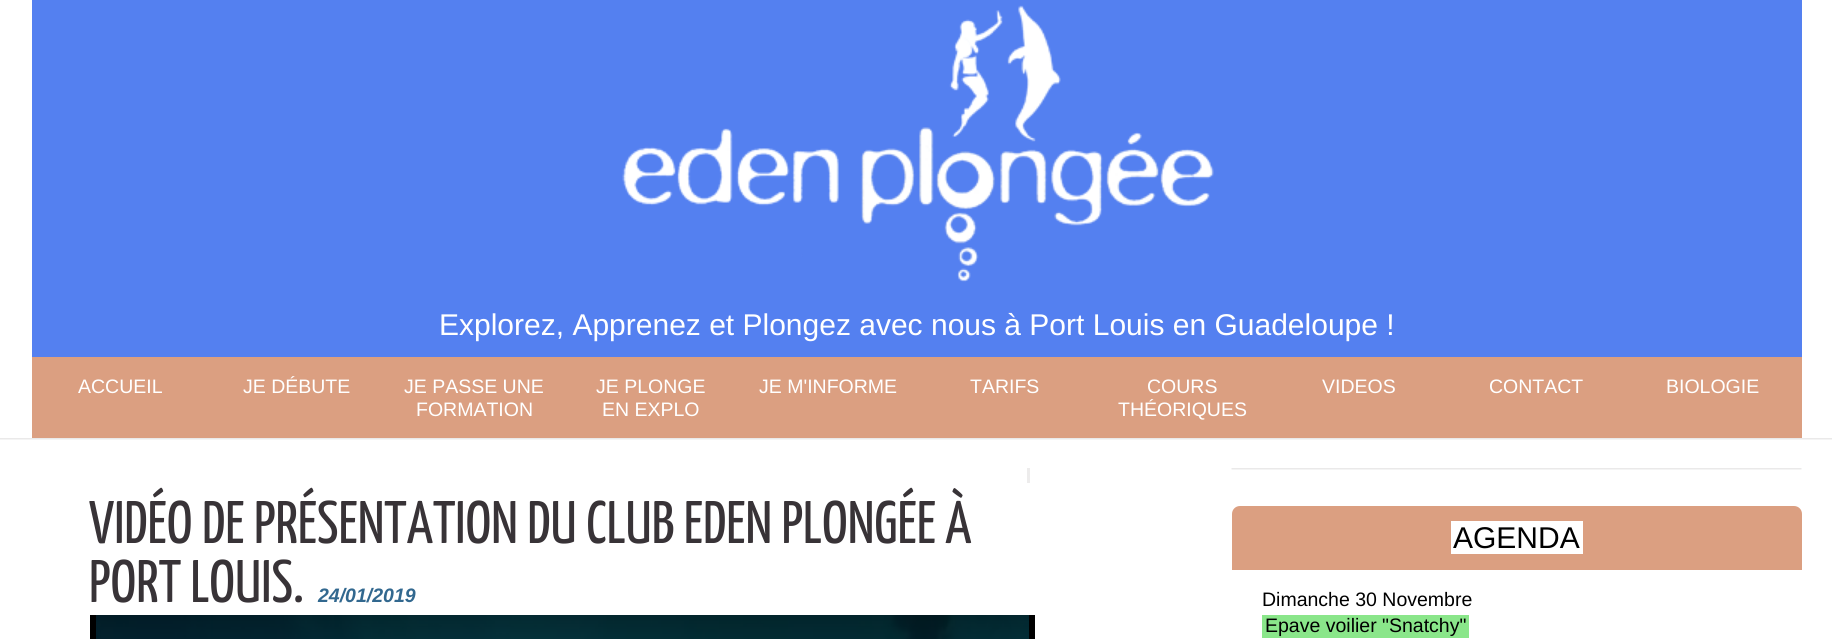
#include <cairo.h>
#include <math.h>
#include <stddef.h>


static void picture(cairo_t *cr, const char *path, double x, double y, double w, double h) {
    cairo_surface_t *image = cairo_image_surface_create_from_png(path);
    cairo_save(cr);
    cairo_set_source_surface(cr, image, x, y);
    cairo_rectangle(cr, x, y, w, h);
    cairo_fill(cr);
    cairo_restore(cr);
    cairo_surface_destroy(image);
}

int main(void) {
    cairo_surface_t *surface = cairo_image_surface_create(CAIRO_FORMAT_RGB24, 1832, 639);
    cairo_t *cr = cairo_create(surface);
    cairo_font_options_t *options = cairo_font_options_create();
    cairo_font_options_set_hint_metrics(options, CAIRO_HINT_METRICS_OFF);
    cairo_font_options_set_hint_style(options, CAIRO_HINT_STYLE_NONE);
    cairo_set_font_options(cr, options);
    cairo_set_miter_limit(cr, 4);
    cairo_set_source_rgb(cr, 1, 1, 1);
    cairo_paint(cr);
    cairo_set_source_rgb(cr, 0.329, 0.502, 0.941);
    cairo_rectangle(cr, 32, 0, 1770, 357);
    cairo_fill(cr);
    picture(cr, "img1.png", 622, 5, 592, 277);
    cairo_select_font_face(cr, "Liberation Sans", CAIRO_FONT_SLANT_NORMAL, CAIRO_FONT_WEIGHT_NORMAL);
    cairo_set_font_size(cr, 30);
    cairo_set_source_rgb(cr, 1, 1, 1);
    cairo_move_to(cr, 439, 335);
    cairo_show_text(cr, "Explorez, Apprenez et Plongez avec nous à Port Louis en Guadeloupe !");
    cairo_set_source_rgb(cr, 0.859, 0.624, 0.506);
    cairo_rectangle(cr, 32, 357, 1770, 81);
    cairo_fill(cr);
    cairo_set_font_size(cr, 19.5);
    cairo_set_source_rgb(cr, 1, 1, 1);
    cairo_move_to(cr, 78, 393);
    cairo_show_text(cr, "ACCUEIL");
    cairo_move_to(cr, 243, 393);
    cairo_show_text(cr, "JE DÉBUTE");
    cairo_move_to(cr, 404, 393);
    cairo_show_text(cr, "JE PASSE UNE");
    cairo_move_to(cr, 416, 416);
    cairo_show_text(cr, "FORMATION");
    cairo_move_to(cr, 596, 393);
    cairo_show_text(cr, "JE PLONGE");
    cairo_move_to(cr, 602, 416);
    cairo_show_text(cr, "EN EXPLO");
    cairo_move_to(cr, 759, 393);
    cairo_show_text(cr, "JE M'INFORME");
    cairo_move_to(cr, 970, 393);
    cairo_show_text(cr, "TARIFS");
    cairo_move_to(cr, 1147, 393);
    cairo_show_text(cr, "COURS");
    cairo_move_to(cr, 1118, 416);
    cairo_show_text(cr, "THÉORIQUES");
    cairo_move_to(cr, 1322, 393);
    cairo_show_text(cr, "VIDEOS");
    cairo_move_to(cr, 1489, 393);
    cairo_show_text(cr, "CONTACT");
    cairo_move_to(cr, 1666, 393);
    cairo_show_text(cr, "BIOLOGIE");
    picture(cr, "img2.png", 0, 438, 1832, 2);
    cairo_set_source_rgb(cr, 0.929, 0.925, 0.925);
    cairo_rectangle(cr, 1027, 468, 3, 15);
    cairo_fill(cr);
    cairo_select_font_face(cr, "Yanone Kaffeesatz ExtraLight", CAIRO_FONT_SLANT_NORMAL, CAIRO_FONT_WEIGHT_NORMAL);
    cairo_set_font_size(cr, 60);
    cairo_set_source_rgb(cr, 0.22, 0.2, 0.216);
    cairo_move_to(cr, 89, 543);
    cairo_show_text(cr, "VIDÉO DE PRÉSENTATION DU CLUB EDEN PLONGÉE À");
    cairo_move_to(cr, 89, 602);
    cairo_show_text(cr, "PORT LOUIS.");
    cairo_select_font_face(cr, "Liberation Sans", CAIRO_FONT_SLANT_ITALIC, CAIRO_FONT_WEIGHT_BOLD);
    cairo_set_font_size(cr, 19.5);
    cairo_set_source_rgb(cr, 0.196, 0.408, 0.561);
    cairo_move_to(cr, 318, 602);
    cairo_show_text(cr, "24/01/2019");
    picture(cr, "img3.png", 90, 615, 945, 24);
    picture(cr, "img4.png", 1231, 468, 571, 2);
    cairo_set_source_rgb(cr, 0.859, 0.624, 0.506);
    cairo_new_path(cr);
    cairo_move_to(cr, 1240, 506);
    cairo_line_to(cr, 1794, 506);
    cairo_curve_to(cr, 1798.5, 506, 1802, 509.5, 1802, 514);
    cairo_line_to(cr, 1802, 570);
    cairo_line_to(cr, 1232, 570);
    cairo_line_to(cr, 1232, 514);
    cairo_curve_to(cr, 1232, 509.5, 1235.5, 506, 1240, 506);
    cairo_close_path(cr);
    cairo_fill(cr);
    cairo_set_source_rgb(cr, 1, 1, 1);
    cairo_rectangle(cr, 1451, 521, 132, 33);
    cairo_fill(cr);
    cairo_select_font_face(cr, "Liberation Sans", CAIRO_FONT_SLANT_NORMAL, CAIRO_FONT_WEIGHT_NORMAL);
    cairo_set_font_size(cr, 30);
    cairo_set_source_rgb(cr, 0, 0, 0);
    cairo_move_to(cr, 1453, 548);
    cairo_show_text(cr, "AGENDA");
    cairo_set_font_size(cr, 19.5);
    cairo_move_to(cr, 1262, 606);
    cairo_show_text(cr, "Dimanche 30 Novembre");
    cairo_set_source_rgb(cr, 0.541, 0.902, 0.541);
    cairo_rectangle(cr, 1262, 615, 207, 23);
    cairo_fill(cr);
    cairo_set_source_rgb(cr, 0, 0, 0);
    cairo_move_to(cr, 1265, 632);
    cairo_show_text(cr, "Epave voilier \"Snatchy\"");
    cairo_surface_write_to_png(surface, "page.png");
    cairo_font_options_destroy(options);
    cairo_destroy(cr);
    cairo_surface_destroy(surface);
    return 0;
}
